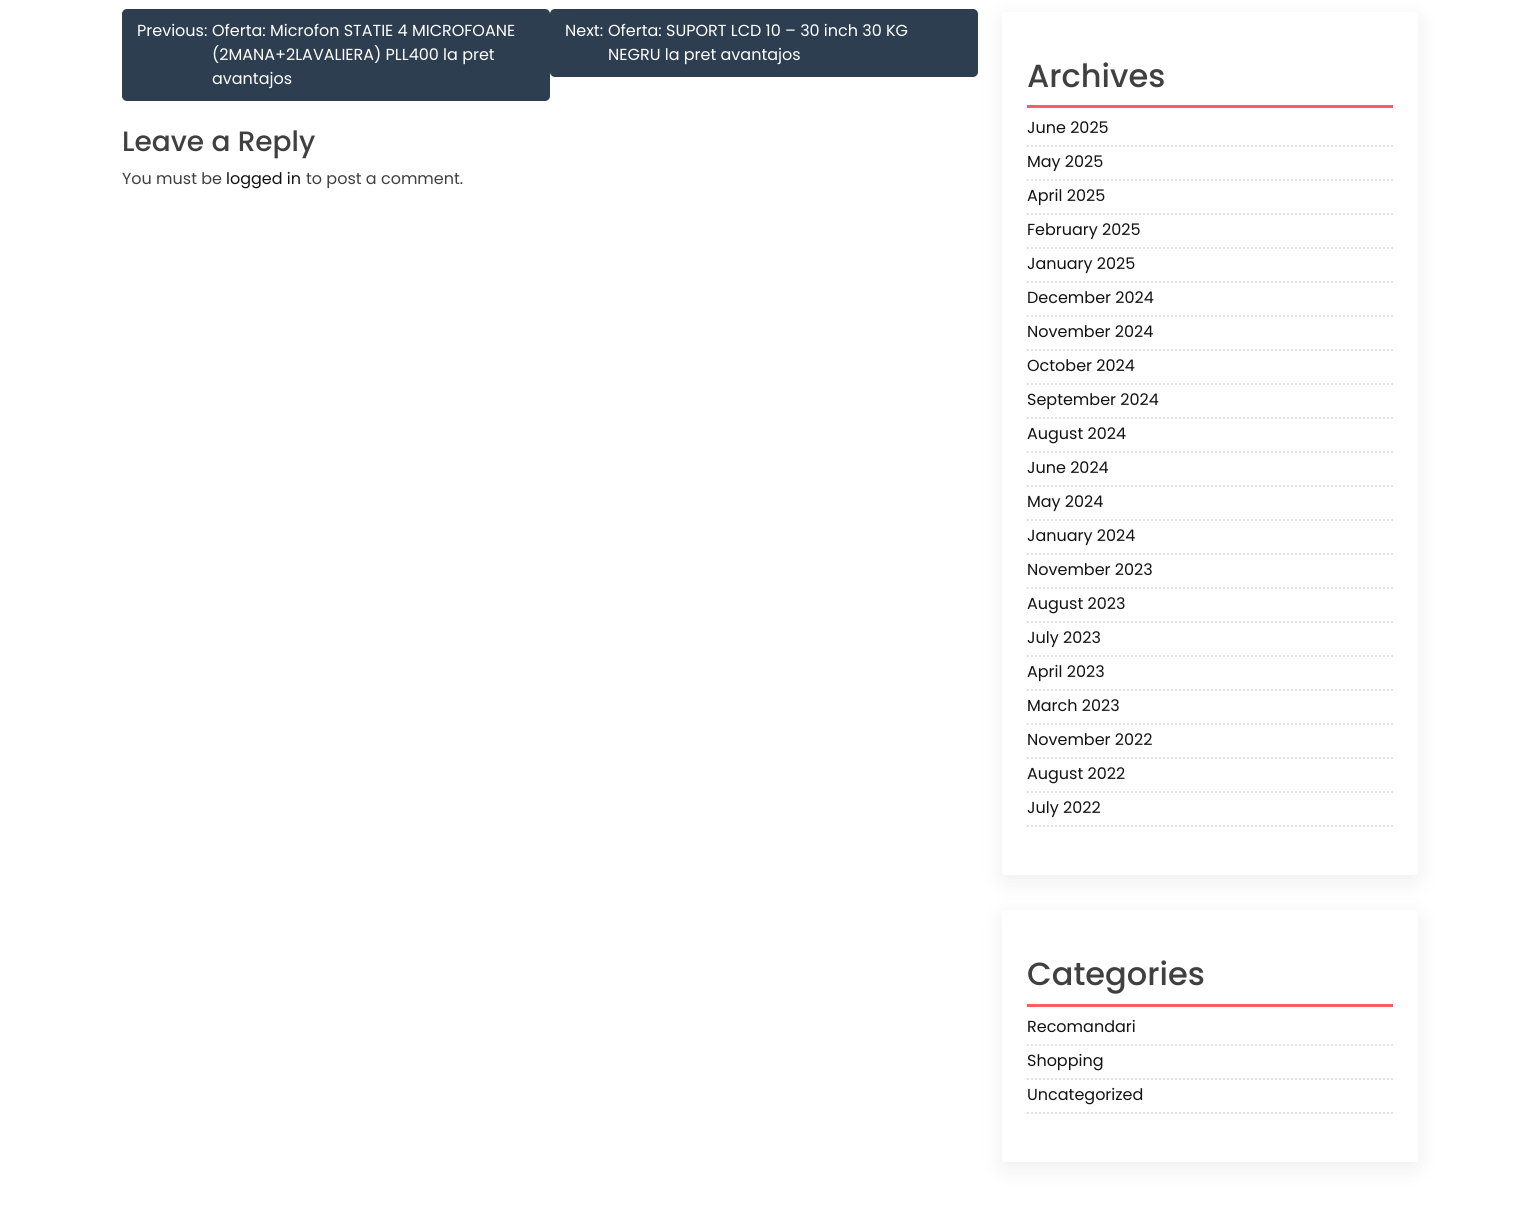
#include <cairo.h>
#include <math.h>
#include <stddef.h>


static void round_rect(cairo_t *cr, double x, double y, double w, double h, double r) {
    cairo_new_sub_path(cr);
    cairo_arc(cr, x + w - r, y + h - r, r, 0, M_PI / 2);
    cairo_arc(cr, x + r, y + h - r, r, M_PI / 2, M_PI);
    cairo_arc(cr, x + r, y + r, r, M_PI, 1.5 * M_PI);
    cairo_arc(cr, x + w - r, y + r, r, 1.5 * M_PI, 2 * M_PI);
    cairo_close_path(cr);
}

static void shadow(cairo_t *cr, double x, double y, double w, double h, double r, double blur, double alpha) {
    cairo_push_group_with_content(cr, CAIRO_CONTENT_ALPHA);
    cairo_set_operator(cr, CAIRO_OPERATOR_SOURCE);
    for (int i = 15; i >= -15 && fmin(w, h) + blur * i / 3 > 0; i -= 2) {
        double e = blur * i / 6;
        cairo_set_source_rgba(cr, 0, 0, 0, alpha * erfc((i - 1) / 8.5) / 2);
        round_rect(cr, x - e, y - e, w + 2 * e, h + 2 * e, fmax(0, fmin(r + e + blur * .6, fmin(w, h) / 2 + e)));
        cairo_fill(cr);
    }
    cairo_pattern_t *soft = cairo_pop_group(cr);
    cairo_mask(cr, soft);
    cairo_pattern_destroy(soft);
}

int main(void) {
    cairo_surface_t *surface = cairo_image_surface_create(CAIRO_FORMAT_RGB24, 1540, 1210);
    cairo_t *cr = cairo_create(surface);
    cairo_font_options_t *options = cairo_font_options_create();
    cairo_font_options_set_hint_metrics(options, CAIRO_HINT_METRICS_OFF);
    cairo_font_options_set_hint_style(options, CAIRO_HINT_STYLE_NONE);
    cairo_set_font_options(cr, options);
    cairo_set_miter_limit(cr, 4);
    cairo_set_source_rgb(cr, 1, 1, 1);
    cairo_paint(cr);
    cairo_set_source_rgb(cr, 0.173, 0.243, 0.314);
    round_rect(cr, 122, 9, 428, 92, 5);
    cairo_fill(cr);
    cairo_select_font_face(cr, "Poppins", CAIRO_FONT_SLANT_NORMAL, CAIRO_FONT_WEIGHT_NORMAL);
    cairo_set_font_size(cr, 16);
    cairo_set_source_rgb(cr, 1, 1, 1);
    cairo_move_to(cr, 137, 36);
    cairo_show_text(cr, "Previous:");
    cairo_move_to(cr, 212, 36);
    cairo_show_text(cr, "Oferta: Microfon STATIE 4 MICROFOANE");
    cairo_move_to(cr, 212, 60);
    cairo_show_text(cr, "(2MANA+2LAVALIERA) PLL400 la pret");
    cairo_move_to(cr, 212, 84);
    cairo_show_text(cr, "avantajos");
    cairo_set_source_rgb(cr, 0.173, 0.243, 0.314);
    round_rect(cr, 550, 9, 428, 68, 5);
    cairo_fill(cr);
    cairo_set_source_rgb(cr, 1, 1, 1);
    cairo_move_to(cr, 565, 36);
    cairo_show_text(cr, "Next:");
    cairo_move_to(cr, 608, 36);
    cairo_show_text(cr, "Oferta: SUPORT LCD 10 – 30 inch 30 KG");
    cairo_move_to(cr, 608, 60);
    cairo_show_text(cr, "NEGRU la pret avantajos");
    cairo_select_font_face(cr, "Poppins Medium", CAIRO_FONT_SLANT_NORMAL, CAIRO_FONT_WEIGHT_NORMAL);
    cairo_set_font_size(cr, 28);
    cairo_set_source_rgb(cr, 0.251, 0.251, 0.251);
    cairo_move_to(cr, 122, 151);
    cairo_show_text(cr, "Leave a Reply");
    cairo_select_font_face(cr, "Poppins", CAIRO_FONT_SLANT_NORMAL, CAIRO_FONT_WEIGHT_NORMAL);
    cairo_set_font_size(cr, 16);
    cairo_move_to(cr, 122, 184);
    cairo_show_text(cr, "You must be");
    cairo_set_source_rgb(cr, 0.071, 0.071, 0.071);
    cairo_move_to(cr, 226, 184);
    cairo_show_text(cr, "logged in");
    cairo_set_source_rgb(cr, 0.251, 0.251, 0.251);
    cairo_move_to(cr, 306, 184);
    cairo_show_text(cr, "to post a comment.");
    cairo_set_source_rgb(cr, 0, 0, 0);
    shadow(cr, 1002, 18, 416, 863, 3, 12.5, 0.07);
    cairo_set_source_rgb(cr, 1, 1, 1);
    round_rect(cr, 1002, 12, 416, 863, 3);
    cairo_fill(cr);
    cairo_set_source_rgb(cr, 0.988, 0.361, 0.396);
    cairo_rectangle(cr, 1027, 105, 366, 3);
    cairo_fill(cr);
    cairo_select_font_face(cr, "Poppins Medium", CAIRO_FONT_SLANT_NORMAL, CAIRO_FONT_WEIGHT_NORMAL);
    cairo_set_font_size(cr, 32);
    cairo_set_source_rgb(cr, 0.251, 0.251, 0.251);
    cairo_move_to(cr, 1027, 87);
    cairo_show_text(cr, "Archives");
    cairo_new_path(cr);
    cairo_move_to(cr, 1027, 146);
    cairo_line_to(cr, 1393, 146);
    cairo_set_source_rgb(cr, 0.886, 0.886, 0.886);
    cairo_set_dash(cr, (double[]){2, 2}, 2, 0);
    cairo_stroke(cr);
    cairo_select_font_face(cr, "Poppins", CAIRO_FONT_SLANT_NORMAL, CAIRO_FONT_WEIGHT_NORMAL);
    cairo_set_font_size(cr, 16);
    cairo_set_source_rgb(cr, 0.071, 0.071, 0.071);
    cairo_move_to(cr, 1027, 133);
    cairo_show_text(cr, "June 2025");
    cairo_new_path(cr);
    cairo_move_to(cr, 1027, 180);
    cairo_line_to(cr, 1393, 180);
    cairo_set_source_rgb(cr, 0.886, 0.886, 0.886);
    cairo_stroke(cr);
    cairo_set_source_rgb(cr, 0.071, 0.071, 0.071);
    cairo_move_to(cr, 1027, 167);
    cairo_show_text(cr, "May 2025");
    cairo_new_path(cr);
    cairo_move_to(cr, 1027, 214);
    cairo_line_to(cr, 1393, 214);
    cairo_set_source_rgb(cr, 0.886, 0.886, 0.886);
    cairo_stroke(cr);
    cairo_set_source_rgb(cr, 0.071, 0.071, 0.071);
    cairo_move_to(cr, 1027, 201);
    cairo_show_text(cr, "April 2025");
    cairo_new_path(cr);
    cairo_move_to(cr, 1027, 248);
    cairo_line_to(cr, 1393, 248);
    cairo_set_source_rgb(cr, 0.886, 0.886, 0.886);
    cairo_stroke(cr);
    cairo_set_source_rgb(cr, 0.071, 0.071, 0.071);
    cairo_move_to(cr, 1027, 235);
    cairo_show_text(cr, "February 2025");
    cairo_new_path(cr);
    cairo_move_to(cr, 1027, 282);
    cairo_line_to(cr, 1393, 282);
    cairo_set_source_rgb(cr, 0.886, 0.886, 0.886);
    cairo_stroke(cr);
    cairo_set_source_rgb(cr, 0.071, 0.071, 0.071);
    cairo_move_to(cr, 1027, 269);
    cairo_show_text(cr, "January 2025");
    cairo_new_path(cr);
    cairo_move_to(cr, 1027, 316);
    cairo_line_to(cr, 1393, 316);
    cairo_set_source_rgb(cr, 0.886, 0.886, 0.886);
    cairo_stroke(cr);
    cairo_set_source_rgb(cr, 0.071, 0.071, 0.071);
    cairo_move_to(cr, 1027, 303);
    cairo_show_text(cr, "December 2024");
    cairo_new_path(cr);
    cairo_move_to(cr, 1027, 350);
    cairo_line_to(cr, 1393, 350);
    cairo_set_source_rgb(cr, 0.886, 0.886, 0.886);
    cairo_stroke(cr);
    cairo_set_source_rgb(cr, 0.071, 0.071, 0.071);
    cairo_move_to(cr, 1027, 337);
    cairo_show_text(cr, "November 2024");
    cairo_new_path(cr);
    cairo_move_to(cr, 1027, 384);
    cairo_line_to(cr, 1393, 384);
    cairo_set_source_rgb(cr, 0.886, 0.886, 0.886);
    cairo_stroke(cr);
    cairo_set_source_rgb(cr, 0.071, 0.071, 0.071);
    cairo_move_to(cr, 1027, 371);
    cairo_show_text(cr, "October 2024");
    cairo_new_path(cr);
    cairo_move_to(cr, 1027, 418);
    cairo_line_to(cr, 1393, 418);
    cairo_set_source_rgb(cr, 0.886, 0.886, 0.886);
    cairo_stroke(cr);
    cairo_set_source_rgb(cr, 0.071, 0.071, 0.071);
    cairo_move_to(cr, 1027, 405);
    cairo_show_text(cr, "September 2024");
    cairo_new_path(cr);
    cairo_move_to(cr, 1027, 452);
    cairo_line_to(cr, 1393, 452);
    cairo_set_source_rgb(cr, 0.886, 0.886, 0.886);
    cairo_stroke(cr);
    cairo_set_source_rgb(cr, 0.071, 0.071, 0.071);
    cairo_move_to(cr, 1027, 439);
    cairo_show_text(cr, "August 2024");
    cairo_new_path(cr);
    cairo_move_to(cr, 1027, 486);
    cairo_line_to(cr, 1393, 486);
    cairo_set_source_rgb(cr, 0.886, 0.886, 0.886);
    cairo_stroke(cr);
    cairo_set_source_rgb(cr, 0.071, 0.071, 0.071);
    cairo_move_to(cr, 1027, 473);
    cairo_show_text(cr, "June 2024");
    cairo_new_path(cr);
    cairo_move_to(cr, 1027, 520);
    cairo_line_to(cr, 1393, 520);
    cairo_set_source_rgb(cr, 0.886, 0.886, 0.886);
    cairo_stroke(cr);
    cairo_set_source_rgb(cr, 0.071, 0.071, 0.071);
    cairo_move_to(cr, 1027, 507);
    cairo_show_text(cr, "May 2024");
    cairo_new_path(cr);
    cairo_move_to(cr, 1027, 554);
    cairo_line_to(cr, 1393, 554);
    cairo_set_source_rgb(cr, 0.886, 0.886, 0.886);
    cairo_stroke(cr);
    cairo_set_source_rgb(cr, 0.071, 0.071, 0.071);
    cairo_move_to(cr, 1027, 541);
    cairo_show_text(cr, "January 2024");
    cairo_new_path(cr);
    cairo_move_to(cr, 1027, 588);
    cairo_line_to(cr, 1393, 588);
    cairo_set_source_rgb(cr, 0.886, 0.886, 0.886);
    cairo_stroke(cr);
    cairo_set_source_rgb(cr, 0.071, 0.071, 0.071);
    cairo_move_to(cr, 1027, 575);
    cairo_show_text(cr, "November 2023");
    cairo_new_path(cr);
    cairo_move_to(cr, 1027, 622);
    cairo_line_to(cr, 1393, 622);
    cairo_set_source_rgb(cr, 0.886, 0.886, 0.886);
    cairo_stroke(cr);
    cairo_set_source_rgb(cr, 0.071, 0.071, 0.071);
    cairo_move_to(cr, 1027, 609);
    cairo_show_text(cr, "August 2023");
    cairo_new_path(cr);
    cairo_move_to(cr, 1027, 656);
    cairo_line_to(cr, 1393, 656);
    cairo_set_source_rgb(cr, 0.886, 0.886, 0.886);
    cairo_stroke(cr);
    cairo_set_source_rgb(cr, 0.071, 0.071, 0.071);
    cairo_move_to(cr, 1027, 643);
    cairo_show_text(cr, "July 2023");
    cairo_new_path(cr);
    cairo_move_to(cr, 1027, 690);
    cairo_line_to(cr, 1393, 690);
    cairo_set_source_rgb(cr, 0.886, 0.886, 0.886);
    cairo_stroke(cr);
    cairo_set_source_rgb(cr, 0.071, 0.071, 0.071);
    cairo_move_to(cr, 1027, 677);
    cairo_show_text(cr, "April 2023");
    cairo_new_path(cr);
    cairo_move_to(cr, 1027, 724);
    cairo_line_to(cr, 1393, 724);
    cairo_set_source_rgb(cr, 0.886, 0.886, 0.886);
    cairo_stroke(cr);
    cairo_set_source_rgb(cr, 0.071, 0.071, 0.071);
    cairo_move_to(cr, 1027, 711);
    cairo_show_text(cr, "March 2023");
    cairo_new_path(cr);
    cairo_move_to(cr, 1027, 758);
    cairo_line_to(cr, 1393, 758);
    cairo_set_source_rgb(cr, 0.886, 0.886, 0.886);
    cairo_stroke(cr);
    cairo_set_source_rgb(cr, 0.071, 0.071, 0.071);
    cairo_move_to(cr, 1027, 745);
    cairo_show_text(cr, "November 2022");
    cairo_new_path(cr);
    cairo_move_to(cr, 1027, 792);
    cairo_line_to(cr, 1393, 792);
    cairo_set_source_rgb(cr, 0.886, 0.886, 0.886);
    cairo_stroke(cr);
    cairo_set_source_rgb(cr, 0.071, 0.071, 0.071);
    cairo_move_to(cr, 1027, 779);
    cairo_show_text(cr, "August 2022");
    cairo_new_path(cr);
    cairo_move_to(cr, 1027, 826);
    cairo_line_to(cr, 1393, 826);
    cairo_set_source_rgb(cr, 0.886, 0.886, 0.886);
    cairo_stroke(cr);
    cairo_set_source_rgb(cr, 0.071, 0.071, 0.071);
    cairo_move_to(cr, 1027, 813);
    cairo_show_text(cr, "July 2022");
    cairo_set_source_rgb(cr, 0, 0, 0);
    shadow(cr, 1002, 916, 416, 252, 3, 12.5, 0.07);
    cairo_set_source_rgb(cr, 1, 1, 1);
    round_rect(cr, 1002, 910, 416, 252, 3);
    cairo_fill(cr);
    cairo_set_source_rgb(cr, 0.988, 0.361, 0.396);
    cairo_rectangle(cr, 1027, 1004, 366, 3);
    cairo_fill(cr);
    cairo_select_font_face(cr, "Poppins Medium", CAIRO_FONT_SLANT_NORMAL, CAIRO_FONT_WEIGHT_NORMAL);
    cairo_set_font_size(cr, 32);
    cairo_set_source_rgb(cr, 0.251, 0.251, 0.251);
    cairo_move_to(cr, 1027, 985);
    cairo_show_text(cr, "Categories");
    cairo_new_path(cr);
    cairo_move_to(cr, 1027, 1045);
    cairo_line_to(cr, 1393, 1045);
    cairo_set_source_rgb(cr, 0.886, 0.886, 0.886);
    cairo_stroke(cr);
    cairo_select_font_face(cr, "Poppins", CAIRO_FONT_SLANT_NORMAL, CAIRO_FONT_WEIGHT_NORMAL);
    cairo_set_font_size(cr, 16);
    cairo_set_source_rgb(cr, 0.071, 0.071, 0.071);
    cairo_move_to(cr, 1027, 1032);
    cairo_show_text(cr, "Recomandari");
    cairo_new_path(cr);
    cairo_move_to(cr, 1027, 1079);
    cairo_line_to(cr, 1393, 1079);
    cairo_set_source_rgb(cr, 0.886, 0.886, 0.886);
    cairo_stroke(cr);
    cairo_set_source_rgb(cr, 0.071, 0.071, 0.071);
    cairo_move_to(cr, 1027, 1066);
    cairo_show_text(cr, "Shopping");
    cairo_new_path(cr);
    cairo_move_to(cr, 1027, 1113);
    cairo_line_to(cr, 1393, 1113);
    cairo_set_source_rgb(cr, 0.886, 0.886, 0.886);
    cairo_stroke(cr);
    cairo_set_source_rgb(cr, 0.071, 0.071, 0.071);
    cairo_move_to(cr, 1027, 1100);
    cairo_show_text(cr, "Uncategorized");
    cairo_surface_write_to_png(surface, "page.png");
    cairo_font_options_destroy(options);
    cairo_destroy(cr);
    cairo_surface_destroy(surface);
    return 0;
}
